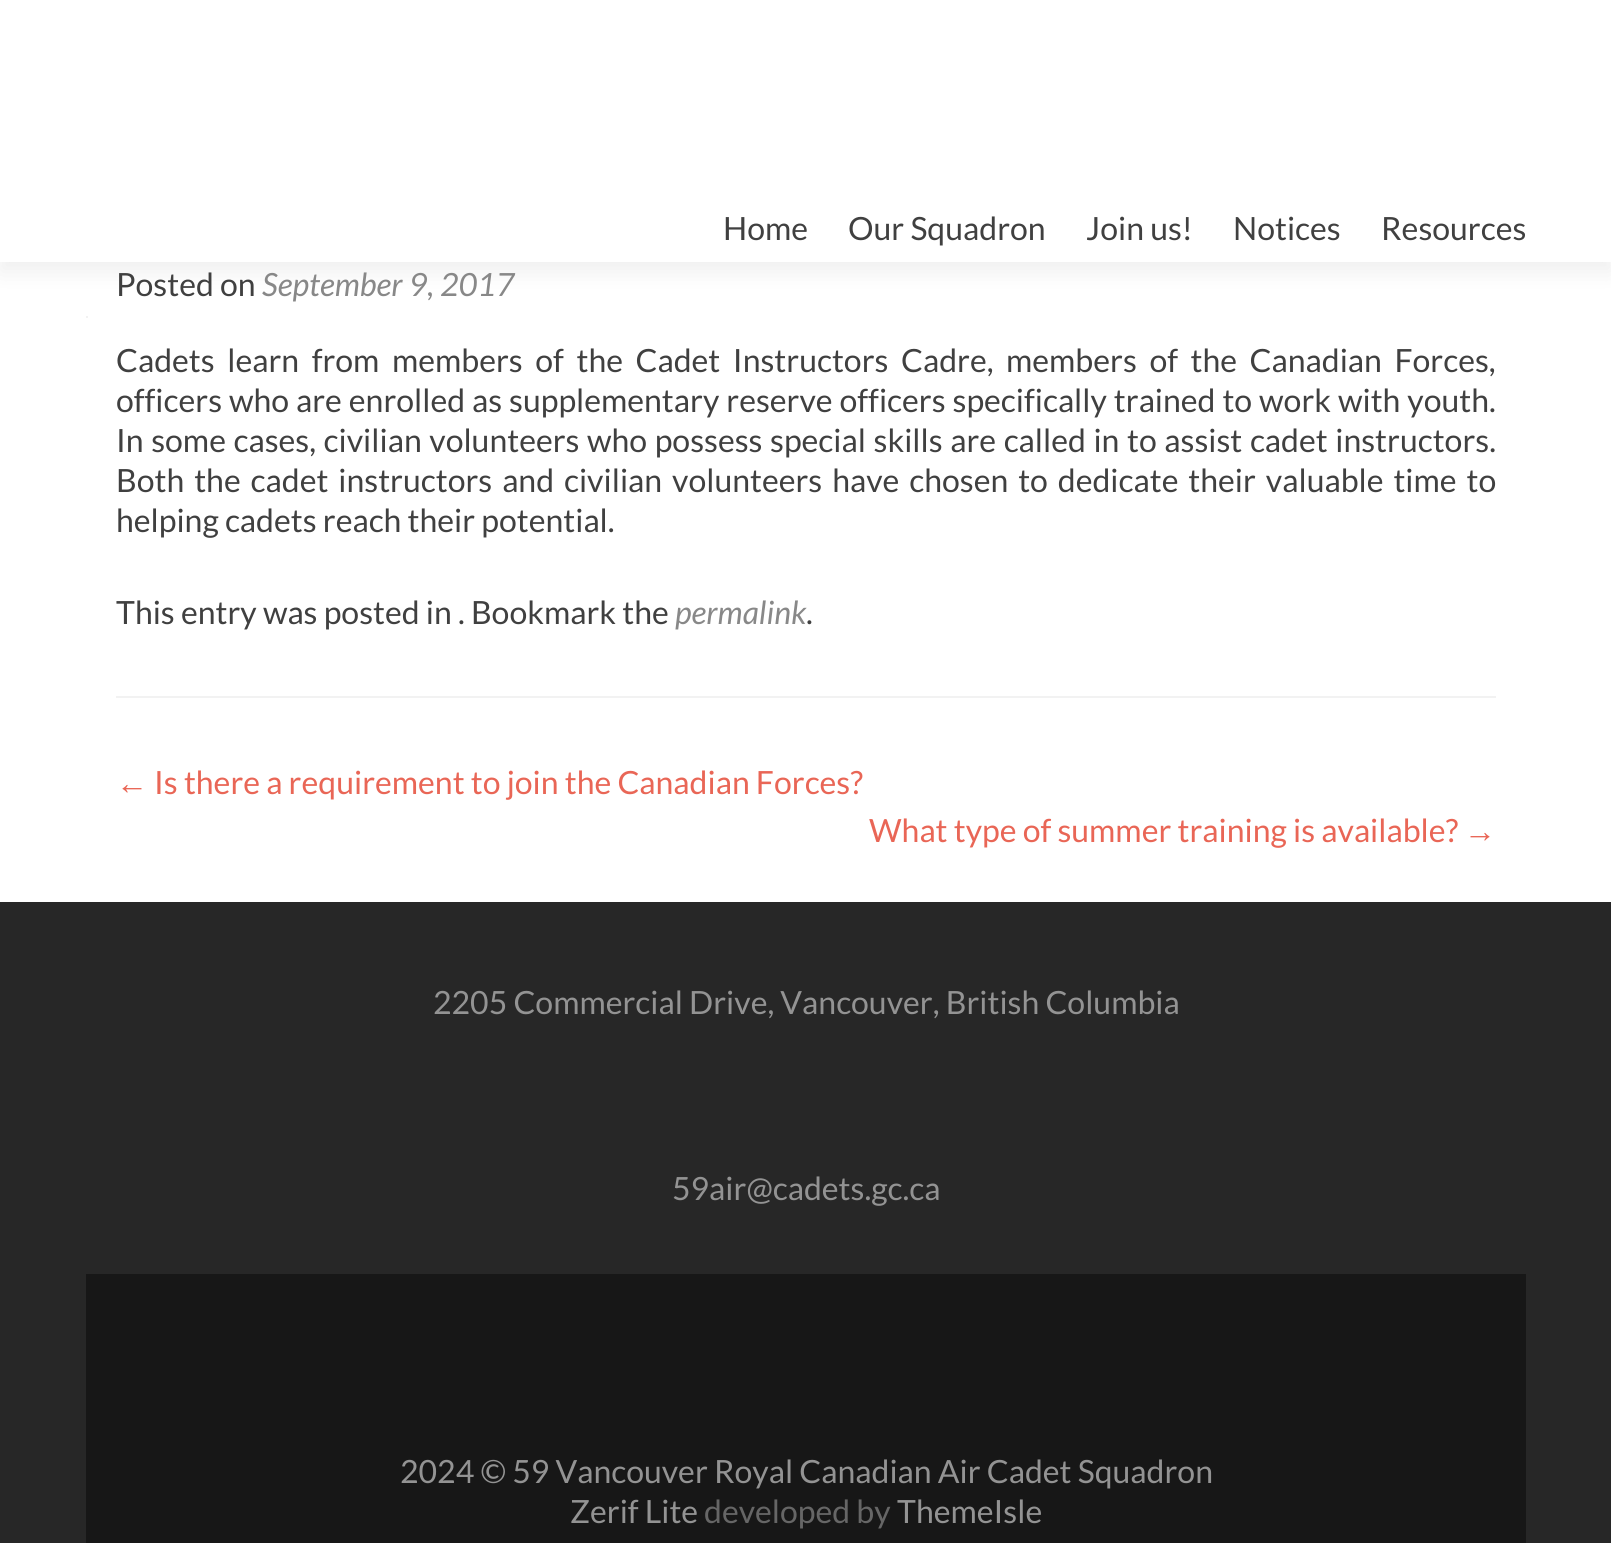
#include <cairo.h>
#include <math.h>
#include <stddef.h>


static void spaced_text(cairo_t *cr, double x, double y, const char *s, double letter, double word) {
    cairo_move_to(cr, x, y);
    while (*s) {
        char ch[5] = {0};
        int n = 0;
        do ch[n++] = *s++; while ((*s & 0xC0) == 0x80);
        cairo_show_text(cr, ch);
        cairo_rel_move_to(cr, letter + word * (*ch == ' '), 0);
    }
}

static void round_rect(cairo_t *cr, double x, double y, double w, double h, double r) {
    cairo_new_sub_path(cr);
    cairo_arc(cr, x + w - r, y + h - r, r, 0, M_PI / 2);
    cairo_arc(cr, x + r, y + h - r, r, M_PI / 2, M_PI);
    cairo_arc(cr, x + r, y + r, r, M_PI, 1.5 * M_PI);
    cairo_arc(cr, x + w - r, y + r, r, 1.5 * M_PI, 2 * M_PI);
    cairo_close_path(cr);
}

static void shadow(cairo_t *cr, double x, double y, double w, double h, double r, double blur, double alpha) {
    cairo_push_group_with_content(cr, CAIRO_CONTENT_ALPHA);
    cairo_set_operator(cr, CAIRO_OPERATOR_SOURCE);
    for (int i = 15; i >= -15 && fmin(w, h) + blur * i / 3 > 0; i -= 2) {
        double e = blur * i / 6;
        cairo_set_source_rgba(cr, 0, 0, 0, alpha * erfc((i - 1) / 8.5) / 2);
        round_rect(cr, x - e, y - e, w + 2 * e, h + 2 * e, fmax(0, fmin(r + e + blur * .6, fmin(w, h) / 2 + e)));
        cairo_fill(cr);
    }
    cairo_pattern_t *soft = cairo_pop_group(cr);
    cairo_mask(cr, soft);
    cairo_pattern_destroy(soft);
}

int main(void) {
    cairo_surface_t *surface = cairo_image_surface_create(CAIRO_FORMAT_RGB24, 1611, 1543);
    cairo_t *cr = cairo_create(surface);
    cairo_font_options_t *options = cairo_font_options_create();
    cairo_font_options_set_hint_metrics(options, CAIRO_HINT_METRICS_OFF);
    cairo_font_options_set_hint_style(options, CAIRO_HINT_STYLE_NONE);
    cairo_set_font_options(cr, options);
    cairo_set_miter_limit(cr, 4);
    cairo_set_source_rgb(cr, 1, 1, 1);
    cairo_paint(cr);
    cairo_set_source_rgb(cr, 0.196, 0.196, 0.196);
    shadow(cr, 0, 10, 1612, 262, 0, 11, 0.08);
    cairo_set_source_rgb(cr, 1, 1, 1);
    cairo_rectangle(cr, 0, 0, 1611, 262);
    cairo_fill(cr);
    cairo_select_font_face(cr, "Lato", CAIRO_FONT_SLANT_NORMAL, CAIRO_FONT_WEIGHT_NORMAL);
    cairo_set_font_size(cr, 32);
    cairo_set_source_rgb(cr, 0.251, 0.251, 0.251);
    cairo_move_to(cr, 723, 240);
    cairo_show_text(cr, "Home");
    cairo_move_to(cr, 848, 240);
    cairo_show_text(cr, "Our Squadron");
    cairo_move_to(cr, 1086, 240);
    cairo_show_text(cr, "Join us!");
    cairo_move_to(cr, 1233, 240);
    cairo_show_text(cr, "Notices");
    cairo_move_to(cr, 1381, 240);
    cairo_show_text(cr, "Resources");
    cairo_set_source_rgb(cr, 0.949, 0.949, 0.949);
    cairo_rectangle(cr, 86, 316, 2, 2);
    cairo_fill(cr);
    cairo_rectangle(cr, 116, 696, 1380, 2);
    cairo_fill(cr);
    cairo_set_source_rgb(cr, 0.251, 0.251, 0.251);
    cairo_move_to(cr, 116, 296);
    cairo_show_text(cr, "Posted on");
    cairo_select_font_face(cr, "Lato", CAIRO_FONT_SLANT_ITALIC, CAIRO_FONT_WEIGHT_NORMAL);
    cairo_set_source_rgb(cr, 0.533, 0.533, 0.533);
    cairo_move_to(cr, 262, 296);
    cairo_show_text(cr, "September 9, 2017");
    cairo_select_font_face(cr, "Lato", CAIRO_FONT_SLANT_NORMAL, CAIRO_FONT_WEIGHT_NORMAL);
    cairo_set_source_rgb(cr, 0.251, 0.251, 0.251);
    spaced_text(cr, 116, 372, "Cadets learn from members of the Cadet Instructors Cadre, members of the Canadian Forces,", 0, 6.4);
    spaced_text(cr, 116, 412, "officers who are enrolled as supplementary reserve officers specifically trained to work with youth.", 0, 0.75);
    spaced_text(cr, 116, 452, "In some cases, civilian volunteers who possess special skills are called in to assist cadet instructors.", 0, 1.4);
    spaced_text(cr, 116, 492, "Both the cadet instructors and civilian volunteers have chosen to dedicate their valuable time to", 0, 3.75);
    cairo_move_to(cr, 116, 532);
    cairo_show_text(cr, "helping cadets reach their potential.");
    cairo_move_to(cr, 116, 624);
    cairo_show_text(cr, "This entry was posted in . Bookmark the");
    cairo_select_font_face(cr, "Lato", CAIRO_FONT_SLANT_ITALIC, CAIRO_FONT_WEIGHT_NORMAL);
    cairo_set_source_rgb(cr, 0.533, 0.533, 0.533);
    cairo_move_to(cr, 675, 624);
    cairo_show_text(cr, "permalink");
    cairo_select_font_face(cr, "Lato", CAIRO_FONT_SLANT_NORMAL, CAIRO_FONT_WEIGHT_NORMAL);
    cairo_set_source_rgb(cr, 0.251, 0.251, 0.251);
    cairo_move_to(cr, 806, 624);
    cairo_show_text(cr, ".");
    cairo_select_font_face(cr, "Liberation Sans", CAIRO_FONT_SLANT_NORMAL, CAIRO_FONT_WEIGHT_NORMAL);
    cairo_set_source_rgb(cr, 0.914, 0.4, 0.337);
    cairo_move_to(cr, 116, 794);
    cairo_show_text(cr, "←");
    cairo_select_font_face(cr, "Lato", CAIRO_FONT_SLANT_NORMAL, CAIRO_FONT_WEIGHT_NORMAL);
    cairo_move_to(cr, 154, 794);
    cairo_show_text(cr, "Is there a requirement to join the Canadian Forces?");
    cairo_move_to(cr, 869, 842);
    cairo_show_text(cr, "What type of summer training is available?");
    cairo_select_font_face(cr, "Liberation Sans", CAIRO_FONT_SLANT_NORMAL, CAIRO_FONT_WEIGHT_NORMAL);
    cairo_move_to(cr, 1464, 842);
    cairo_show_text(cr, "→");
    cairo_set_source_rgb(cr, 0.153, 0.153, 0.153);
    cairo_rectangle(cr, 0, 902, 1611, 641);
    cairo_fill(cr);
    cairo_select_font_face(cr, "Lato", CAIRO_FONT_SLANT_NORMAL, CAIRO_FONT_WEIGHT_NORMAL);
    cairo_set_source_rgb(cr, 0.576, 0.576, 0.576);
    cairo_move_to(cr, 433, 1014);
    cairo_show_text(cr, "2205 Commercial Drive, Vancouver, British Columbia");
    cairo_move_to(cr, 672, 1200);
    cairo_show_text(cr, "59air@cadets.gc.ca");
    cairo_set_source_rgb(cr, 0.09, 0.09, 0.09);
    cairo_rectangle(cr, 86, 1274, 1440, 269);
    cairo_fill(cr);
    cairo_set_source_rgb(cr, 0.576, 0.576, 0.576);
    cairo_move_to(cr, 400, 1483);
    cairo_show_text(cr, "2024 © 59 Vancouver Royal Canadian Air Cadet Squadron");
    cairo_move_to(cr, 570, 1523);
    cairo_show_text(cr, "Zerif Lite");
    cairo_set_source_rgb(cr, 0.4, 0.4, 0.4);
    cairo_move_to(cr, 704, 1523);
    cairo_show_text(cr, "developed by");
    cairo_set_source_rgb(cr, 0.576, 0.576, 0.576);
    cairo_move_to(cr, 897, 1523);
    cairo_show_text(cr, "ThemeIsle");
    cairo_surface_write_to_png(surface, "page.png");
    cairo_font_options_destroy(options);
    cairo_destroy(cr);
    cairo_surface_destroy(surface);
    return 0;
}
